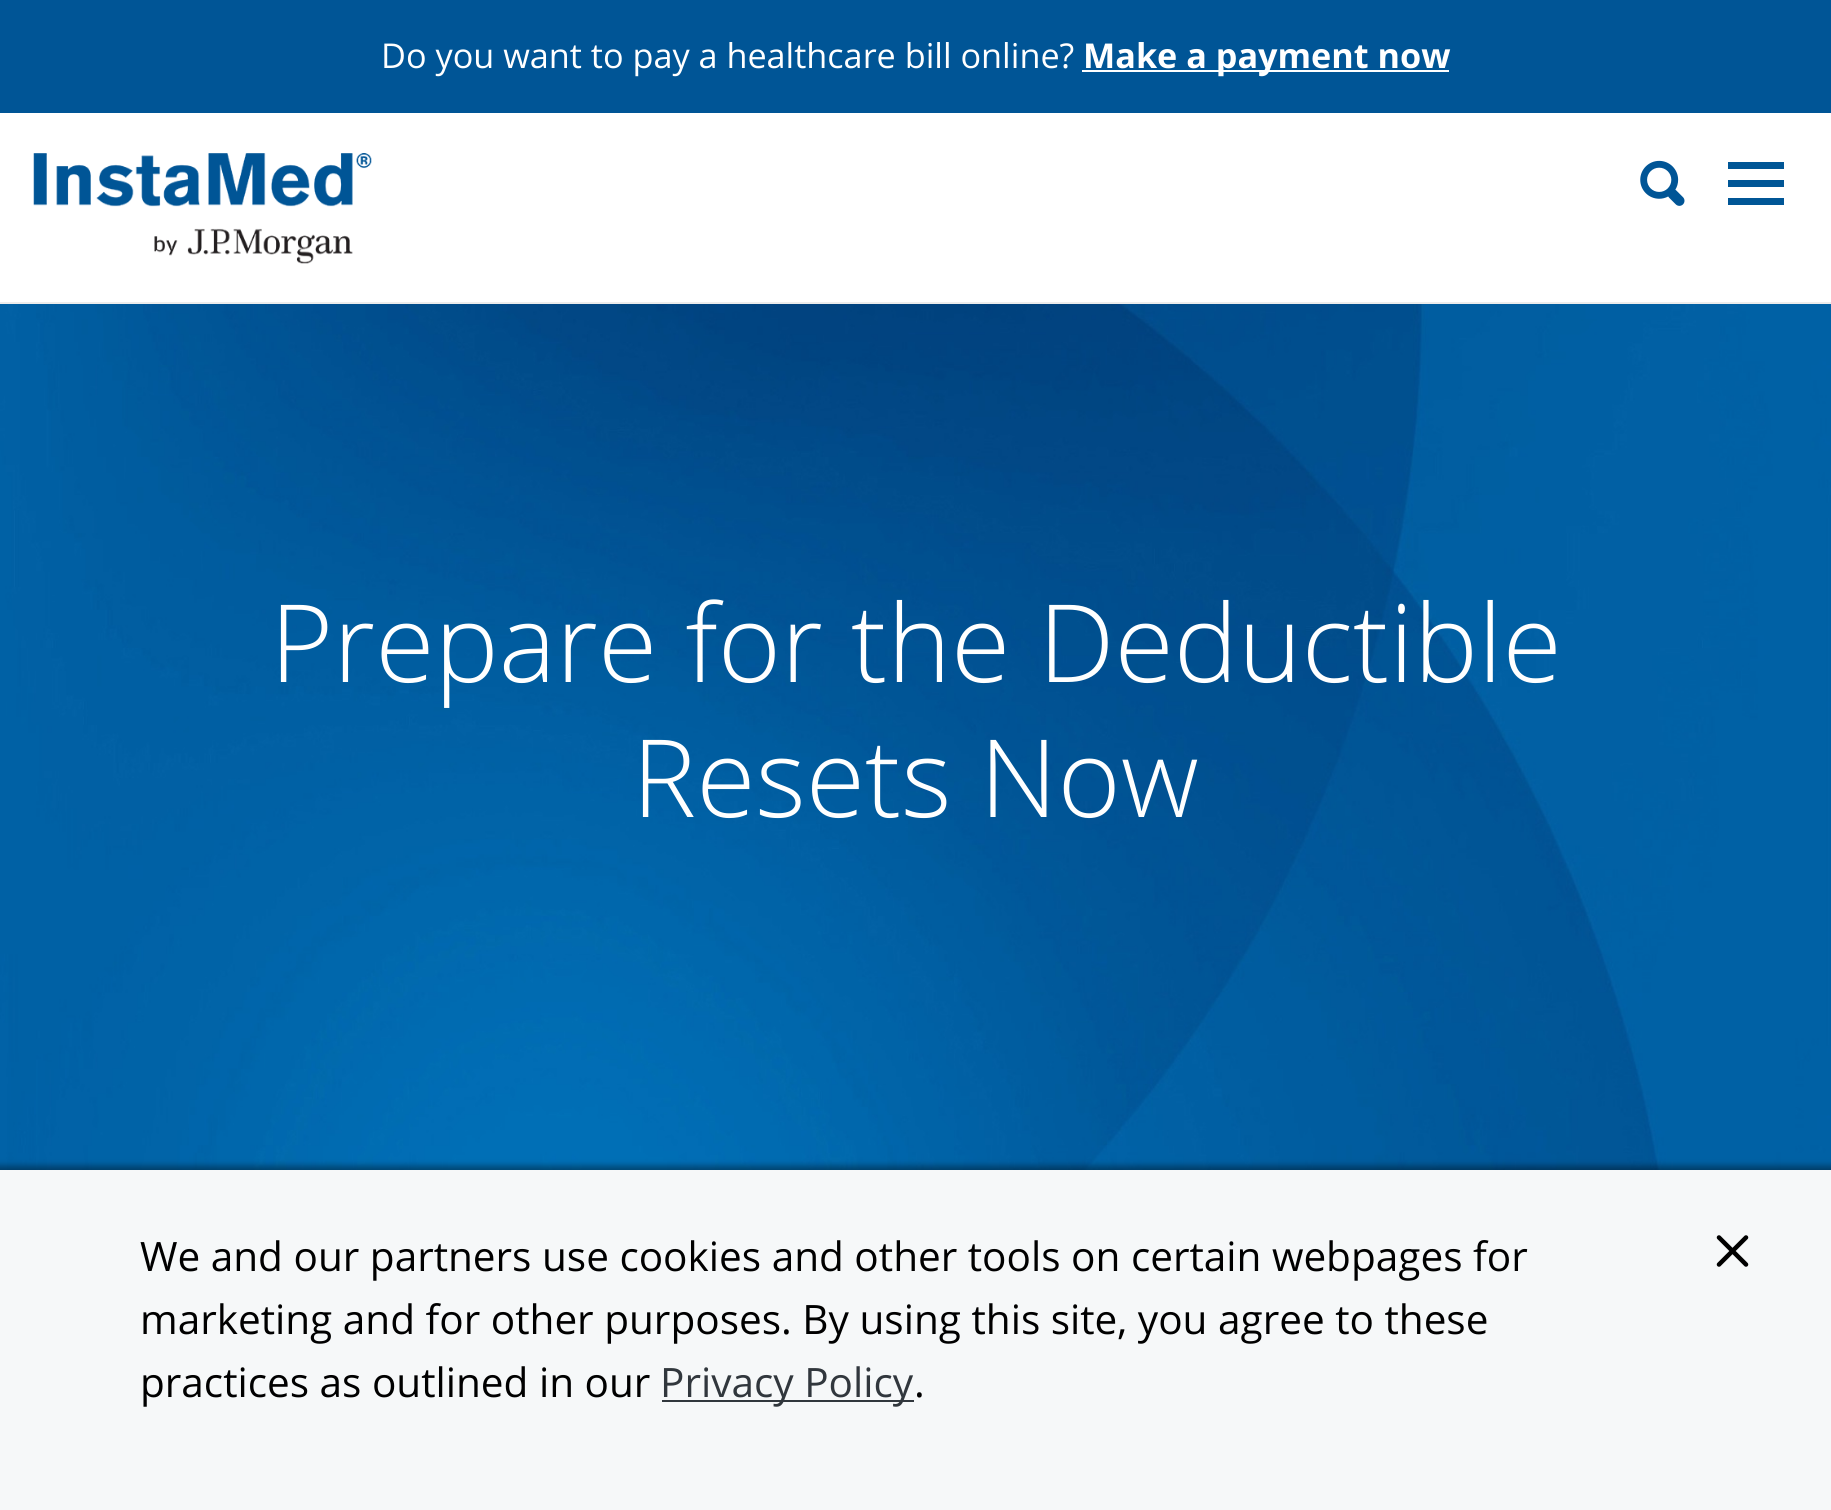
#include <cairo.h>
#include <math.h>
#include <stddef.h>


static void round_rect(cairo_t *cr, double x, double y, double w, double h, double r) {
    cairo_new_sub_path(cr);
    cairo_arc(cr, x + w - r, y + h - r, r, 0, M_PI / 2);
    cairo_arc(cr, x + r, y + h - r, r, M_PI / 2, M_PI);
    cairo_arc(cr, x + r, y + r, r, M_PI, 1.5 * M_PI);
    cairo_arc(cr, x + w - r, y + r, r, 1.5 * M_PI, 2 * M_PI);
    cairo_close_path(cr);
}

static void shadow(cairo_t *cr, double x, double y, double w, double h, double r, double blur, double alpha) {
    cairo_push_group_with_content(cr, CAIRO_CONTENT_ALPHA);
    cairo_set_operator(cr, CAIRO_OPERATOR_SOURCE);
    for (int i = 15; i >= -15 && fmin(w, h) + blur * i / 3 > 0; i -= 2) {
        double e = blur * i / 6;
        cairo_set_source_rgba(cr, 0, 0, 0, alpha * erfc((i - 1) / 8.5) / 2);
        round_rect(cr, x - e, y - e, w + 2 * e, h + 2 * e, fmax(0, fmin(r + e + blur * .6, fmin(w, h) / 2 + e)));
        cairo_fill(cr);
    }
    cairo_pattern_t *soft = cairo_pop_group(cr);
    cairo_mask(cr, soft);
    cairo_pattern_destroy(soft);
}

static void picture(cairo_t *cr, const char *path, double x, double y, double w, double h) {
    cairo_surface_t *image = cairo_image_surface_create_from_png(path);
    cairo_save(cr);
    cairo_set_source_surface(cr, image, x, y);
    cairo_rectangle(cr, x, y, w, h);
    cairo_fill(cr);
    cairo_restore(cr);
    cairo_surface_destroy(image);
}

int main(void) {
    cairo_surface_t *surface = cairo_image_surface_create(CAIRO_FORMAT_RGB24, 1831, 1510);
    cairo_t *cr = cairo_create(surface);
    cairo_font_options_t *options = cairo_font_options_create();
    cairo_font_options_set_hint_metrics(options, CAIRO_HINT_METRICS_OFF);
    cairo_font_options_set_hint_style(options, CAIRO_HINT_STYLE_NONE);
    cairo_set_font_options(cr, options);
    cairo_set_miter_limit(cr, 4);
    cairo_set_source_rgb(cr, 0, 0.333, 0.588);
    cairo_paint(cr);
    cairo_select_font_face(cr, "Open Sans", CAIRO_FONT_SLANT_NORMAL, CAIRO_FONT_WEIGHT_NORMAL);
    cairo_set_font_size(cr, 34.2);
    cairo_set_source_rgb(cr, 1, 1, 1);
    cairo_move_to(cr, 381, 68);
    cairo_show_text(cr, "Do you want to pay a healthcare bill online?");
    cairo_rectangle(cr, 1082, 70, 367, 2);
    cairo_fill(cr);
    cairo_select_font_face(cr, "Open Sans", CAIRO_FONT_SLANT_NORMAL, CAIRO_FONT_WEIGHT_BOLD);
    cairo_move_to(cr, 1083, 68);
    cairo_show_text(cr, "Make a payment now");
    cairo_rectangle(cr, 0, 113, 1831, 189);
    cairo_fill(cr);
    cairo_set_source_rgb(cr, 0.922, 0.922, 0.922);
    cairo_rectangle(cr, 0, 302, 1831, 2);
    cairo_fill(cr);
    picture(cr, "img1.png", 33, 153, 339, 111);
    picture(cr, "img2.png", 1640, 160, 45, 46);
    cairo_set_source_rgb(cr, 0, 0.337, 0.588);
    cairo_rectangle(cr, 1728, 162, 56, 7);
    cairo_fill(cr);
    cairo_rectangle(cr, 1728, 180, 56, 7);
    cairo_fill(cr);
    cairo_rectangle(cr, 1728, 198, 56, 7);
    cairo_fill(cr);
    picture(cr, "img3.png", 0, 304, 1831, 866);
    cairo_select_font_face(cr, "Open Sans Light", CAIRO_FONT_SLANT_NORMAL, CAIRO_FONT_WEIGHT_NORMAL);
    cairo_set_font_size(cr, 108);
    cairo_set_source_rgb(cr, 1, 1, 1);
    cairo_move_to(cr, 270, 682);
    cairo_show_text(cr, "Prepare for the Deductible");
    cairo_move_to(cr, 632, 817);
    cairo_show_text(cr, "Resets Now");
    cairo_set_source_rgb(cr, 0, 0, 0);
    shadow(cr, -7, 1166, 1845, 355, 0, 3.5, 0.4);
    cairo_set_source_rgb(cr, 0.961, 0.969, 0.973);
    cairo_rectangle(cr, 0, 1170, 1831, 340);
    cairo_fill(cr);
    cairo_select_font_face(cr, "Open Sans", CAIRO_FONT_SLANT_NORMAL, CAIRO_FONT_WEIGHT_NORMAL);
    cairo_set_font_size(cr, 40.5);
    cairo_set_source_rgb(cr, 0, 0, 0);
    cairo_move_to(cr, 140, 1271);
    cairo_show_text(cr, "We and our partners use cookies and other tools on certain webpages for");
    cairo_move_to(cr, 140, 1334);
    cairo_show_text(cr, "marketing and for other purposes. By using this site, you agree to these");
    cairo_move_to(cr, 140, 1397);
    cairo_show_text(cr, "practices as outlined in our");
    cairo_set_source_rgb(cr, 0.192, 0.216, 0.239);
    cairo_rectangle(cr, 662, 1400, 252, 2);
    cairo_fill(cr);
    cairo_move_to(cr, 660, 1397);
    cairo_show_text(cr, "Privacy Policy");
    cairo_set_source_rgb(cr, 0, 0, 0);
    cairo_move_to(cr, 914, 1397);
    cairo_show_text(cr, ".");
    cairo_new_path(cr);
    cairo_move_to(cr, 1746, 1237.5);
    cairo_line_to(cr, 1719, 1264.5);
    cairo_move_to(cr, 1719, 1237.5);
    cairo_line_to(cr, 1746, 1264.5);
    cairo_set_line_width(cr, 4.5);
    cairo_set_line_cap(cr, CAIRO_LINE_CAP_ROUND);
    cairo_set_line_join(cr, CAIRO_LINE_JOIN_ROUND);
    cairo_stroke(cr);
    cairo_surface_write_to_png(surface, "page.png");
    cairo_font_options_destroy(options);
    cairo_destroy(cr);
    cairo_surface_destroy(surface);
    return 0;
}
